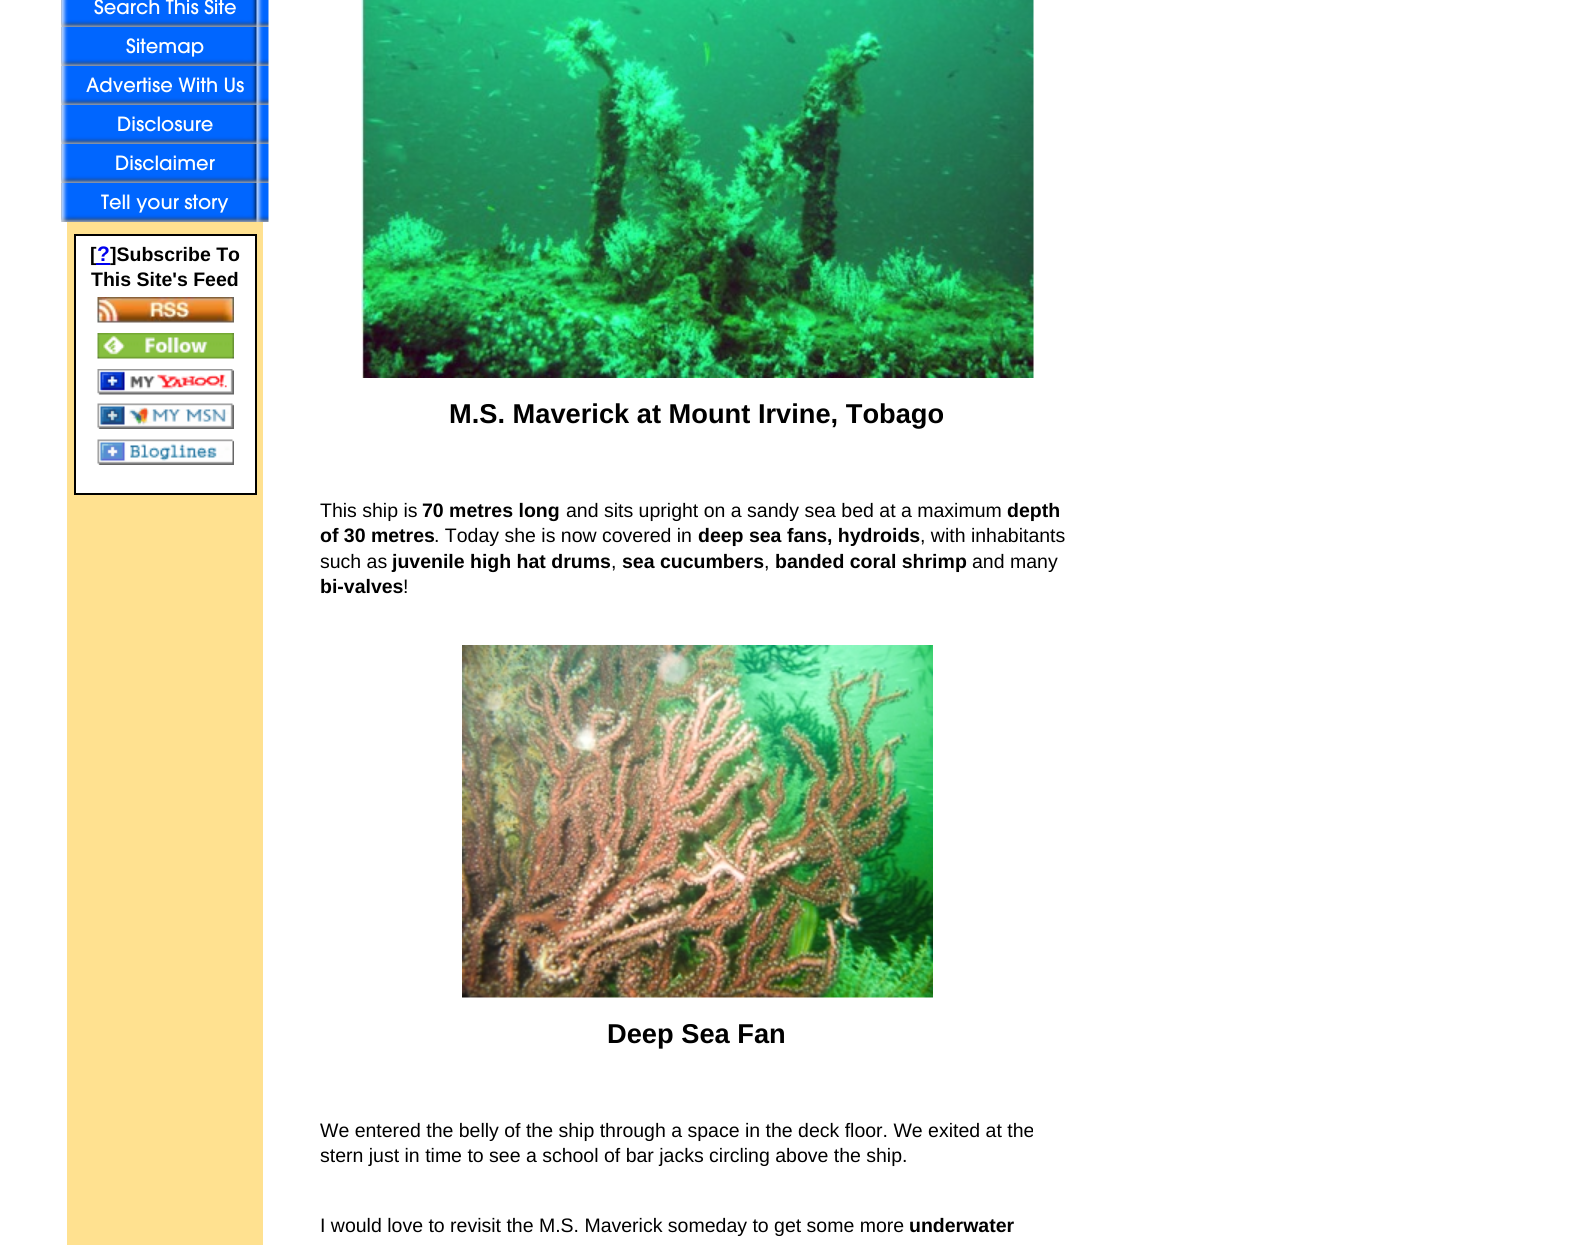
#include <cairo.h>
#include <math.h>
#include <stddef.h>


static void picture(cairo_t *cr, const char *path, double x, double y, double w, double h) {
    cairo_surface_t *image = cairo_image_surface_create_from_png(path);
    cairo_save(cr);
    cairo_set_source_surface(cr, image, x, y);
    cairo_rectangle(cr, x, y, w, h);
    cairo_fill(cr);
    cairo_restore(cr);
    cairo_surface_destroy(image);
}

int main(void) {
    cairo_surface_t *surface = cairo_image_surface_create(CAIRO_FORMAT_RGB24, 1574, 1245);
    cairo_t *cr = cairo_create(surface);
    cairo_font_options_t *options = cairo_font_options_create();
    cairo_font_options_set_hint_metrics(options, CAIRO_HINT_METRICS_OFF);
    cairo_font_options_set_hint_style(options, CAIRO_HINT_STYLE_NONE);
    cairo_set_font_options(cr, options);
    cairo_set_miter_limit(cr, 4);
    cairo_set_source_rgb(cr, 1, 1, 1);
    cairo_paint(cr);
    cairo_set_source_rgb(cr, 1, 0.882, 0.565);
    cairo_rectangle(cr, 67, 222, 196, 1023);
    cairo_fill(cr);
    picture(cr, "img1.png", 61, 0, 208, 27);
    cairo_select_font_face(cr, "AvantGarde", CAIRO_FONT_SLANT_NORMAL, CAIRO_FONT_WEIGHT_NORMAL);
    cairo_set_font_size(cr, 19.5);
    cairo_set_source_rgb(cr, 1, 1, 1);
    cairo_move_to(cr, 94, 14);
    cairo_show_text(cr, "Search This Site");
    picture(cr, "img2.png", 61, 27, 208, 39);
    cairo_move_to(cr, 126, 53);
    cairo_show_text(cr, "Sitemap");
    picture(cr, "img3.png", 61, 66, 208, 39);
    cairo_move_to(cr, 86, 92);
    cairo_show_text(cr, "Advertise With Us");
    picture(cr, "img4.png", 61, 105, 208, 39);
    cairo_move_to(cr, 117, 131);
    cairo_show_text(cr, "Disclosure");
    picture(cr, "img5.png", 61, 144, 208, 39);
    cairo_move_to(cr, 115, 170);
    cairo_show_text(cr, "Disclaimer");
    picture(cr, "img6.png", 61, 183, 208, 39);
    cairo_move_to(cr, 101, 209);
    cairo_show_text(cr, "Tell your story");
    cairo_rectangle(cr, 75, 235, 181, 259);
    cairo_fill_preserve(cr);
    cairo_set_source_rgb(cr, 0, 0, 0);
    cairo_stroke(cr);
    cairo_select_font_face(cr, "Liberation Sans", CAIRO_FONT_SLANT_NORMAL, CAIRO_FONT_WEIGHT_BOLD);
    cairo_move_to(cr, 90, 261);
    cairo_show_text(cr, "[");
    cairo_set_font_size(cr, 21);
    cairo_set_source_rgb(cr, 0, 0, 0.933);
    cairo_move_to(cr, 97, 261);
    cairo_show_text(cr, "?");
    cairo_rectangle(cr, 96, 263, 14, 2);
    cairo_fill(cr);
    cairo_set_font_size(cr, 19.5);
    cairo_set_source_rgb(cr, 0, 0, 0);
    cairo_move_to(cr, 110, 261);
    cairo_show_text(cr, "]Subscribe To");
    cairo_move_to(cr, 91, 286);
    cairo_show_text(cr, "This Site's Feed");
    picture(cr, "img7.png", 97, 297, 137, 26);
    picture(cr, "img8.png", 97, 333, 137, 26);
    picture(cr, "img9.png", 97, 369, 137, 26);
    picture(cr, "img10.png", 97, 403, 137, 26);
    picture(cr, "img11.png", 97, 439, 137, 26);
    picture(cr, "img12.png", 361, 0, 673, 378);
    cairo_set_font_size(cr, 27.25);
    cairo_move_to(cr, 449, 423);
    cairo_show_text(cr, "M.S. Maverick at Mount Irvine, Tobago");
    cairo_select_font_face(cr, "Liberation Sans", CAIRO_FONT_SLANT_NORMAL, CAIRO_FONT_WEIGHT_NORMAL);
    cairo_set_font_size(cr, 19.5);
    cairo_move_to(cr, 320, 517);
    cairo_show_text(cr, "This ship is");
    cairo_select_font_face(cr, "Liberation Sans", CAIRO_FONT_SLANT_NORMAL, CAIRO_FONT_WEIGHT_BOLD);
    cairo_move_to(cr, 422, 517);
    cairo_show_text(cr, "70 metres long");
    cairo_select_font_face(cr, "Liberation Sans", CAIRO_FONT_SLANT_NORMAL, CAIRO_FONT_WEIGHT_NORMAL);
    cairo_move_to(cr, 566, 517);
    cairo_show_text(cr, "and sits upright on a sandy sea bed at a maximum");
    cairo_select_font_face(cr, "Liberation Sans", CAIRO_FONT_SLANT_NORMAL, CAIRO_FONT_WEIGHT_BOLD);
    cairo_move_to(cr, 1007, 517);
    cairo_show_text(cr, "depth");
    cairo_move_to(cr, 320, 542);
    cairo_show_text(cr, "of 30 metres");
    cairo_select_font_face(cr, "Liberation Sans", CAIRO_FONT_SLANT_NORMAL, CAIRO_FONT_WEIGHT_NORMAL);
    cairo_move_to(cr, 434, 542);
    cairo_show_text(cr, ". Today she is now covered in");
    cairo_select_font_face(cr, "Liberation Sans", CAIRO_FONT_SLANT_NORMAL, CAIRO_FONT_WEIGHT_BOLD);
    cairo_move_to(cr, 698, 542);
    cairo_show_text(cr, "deep sea fans, hydroids");
    cairo_select_font_face(cr, "Liberation Sans", CAIRO_FONT_SLANT_NORMAL, CAIRO_FONT_WEIGHT_NORMAL);
    cairo_move_to(cr, 920, 542);
    cairo_show_text(cr, ", with inhabitants");
    cairo_move_to(cr, 320, 568);
    cairo_show_text(cr, "such as");
    cairo_select_font_face(cr, "Liberation Sans", CAIRO_FONT_SLANT_NORMAL, CAIRO_FONT_WEIGHT_BOLD);
    cairo_move_to(cr, 392, 568);
    cairo_show_text(cr, "juvenile high hat drums");
    cairo_select_font_face(cr, "Liberation Sans", CAIRO_FONT_SLANT_NORMAL, CAIRO_FONT_WEIGHT_NORMAL);
    cairo_move_to(cr, 611, 568);
    cairo_show_text(cr, ",");
    cairo_select_font_face(cr, "Liberation Sans", CAIRO_FONT_SLANT_NORMAL, CAIRO_FONT_WEIGHT_BOLD);
    cairo_move_to(cr, 622, 568);
    cairo_show_text(cr, "sea cucumbers");
    cairo_select_font_face(cr, "Liberation Sans", CAIRO_FONT_SLANT_NORMAL, CAIRO_FONT_WEIGHT_NORMAL);
    cairo_move_to(cr, 764, 568);
    cairo_show_text(cr, ",");
    cairo_select_font_face(cr, "Liberation Sans", CAIRO_FONT_SLANT_NORMAL, CAIRO_FONT_WEIGHT_BOLD);
    cairo_move_to(cr, 775, 568);
    cairo_show_text(cr, "banded coral shrimp");
    cairo_select_font_face(cr, "Liberation Sans", CAIRO_FONT_SLANT_NORMAL, CAIRO_FONT_WEIGHT_NORMAL);
    cairo_move_to(cr, 972, 568);
    cairo_show_text(cr, "and many");
    cairo_select_font_face(cr, "Liberation Sans", CAIRO_FONT_SLANT_NORMAL, CAIRO_FONT_WEIGHT_BOLD);
    cairo_move_to(cr, 320, 593);
    cairo_show_text(cr, "bi-valves");
    cairo_select_font_face(cr, "Liberation Sans", CAIRO_FONT_SLANT_NORMAL, CAIRO_FONT_WEIGHT_NORMAL);
    cairo_move_to(cr, 403, 593);
    cairo_show_text(cr, "!");
    picture(cr, "img13.png", 462, 645, 471, 353);
    cairo_select_font_face(cr, "Liberation Sans", CAIRO_FONT_SLANT_NORMAL, CAIRO_FONT_WEIGHT_BOLD);
    cairo_set_font_size(cr, 27.25);
    cairo_move_to(cr, 607, 1043);
    cairo_show_text(cr, "Deep Sea Fan");
    cairo_select_font_face(cr, "Liberation Sans", CAIRO_FONT_SLANT_NORMAL, CAIRO_FONT_WEIGHT_NORMAL);
    cairo_set_font_size(cr, 19.5);
    cairo_move_to(cr, 320, 1137);
    cairo_show_text(cr, "We entered the belly of the ship through a space in the deck floor. We exited at the");
    cairo_move_to(cr, 320, 1162);
    cairo_show_text(cr, "stern just in time to see a school of bar jacks circling above the ship.");
    cairo_move_to(cr, 320, 1232);
    cairo_show_text(cr, "I would love to revisit the M.S. Maverick someday to get some more");
    cairo_select_font_face(cr, "Liberation Sans", CAIRO_FONT_SLANT_NORMAL, CAIRO_FONT_WEIGHT_BOLD);
    cairo_move_to(cr, 909, 1232);
    cairo_show_text(cr, "underwater");
    cairo_surface_write_to_png(surface, "page.png");
    cairo_font_options_destroy(options);
    cairo_destroy(cr);
    cairo_surface_destroy(surface);
    return 0;
}
